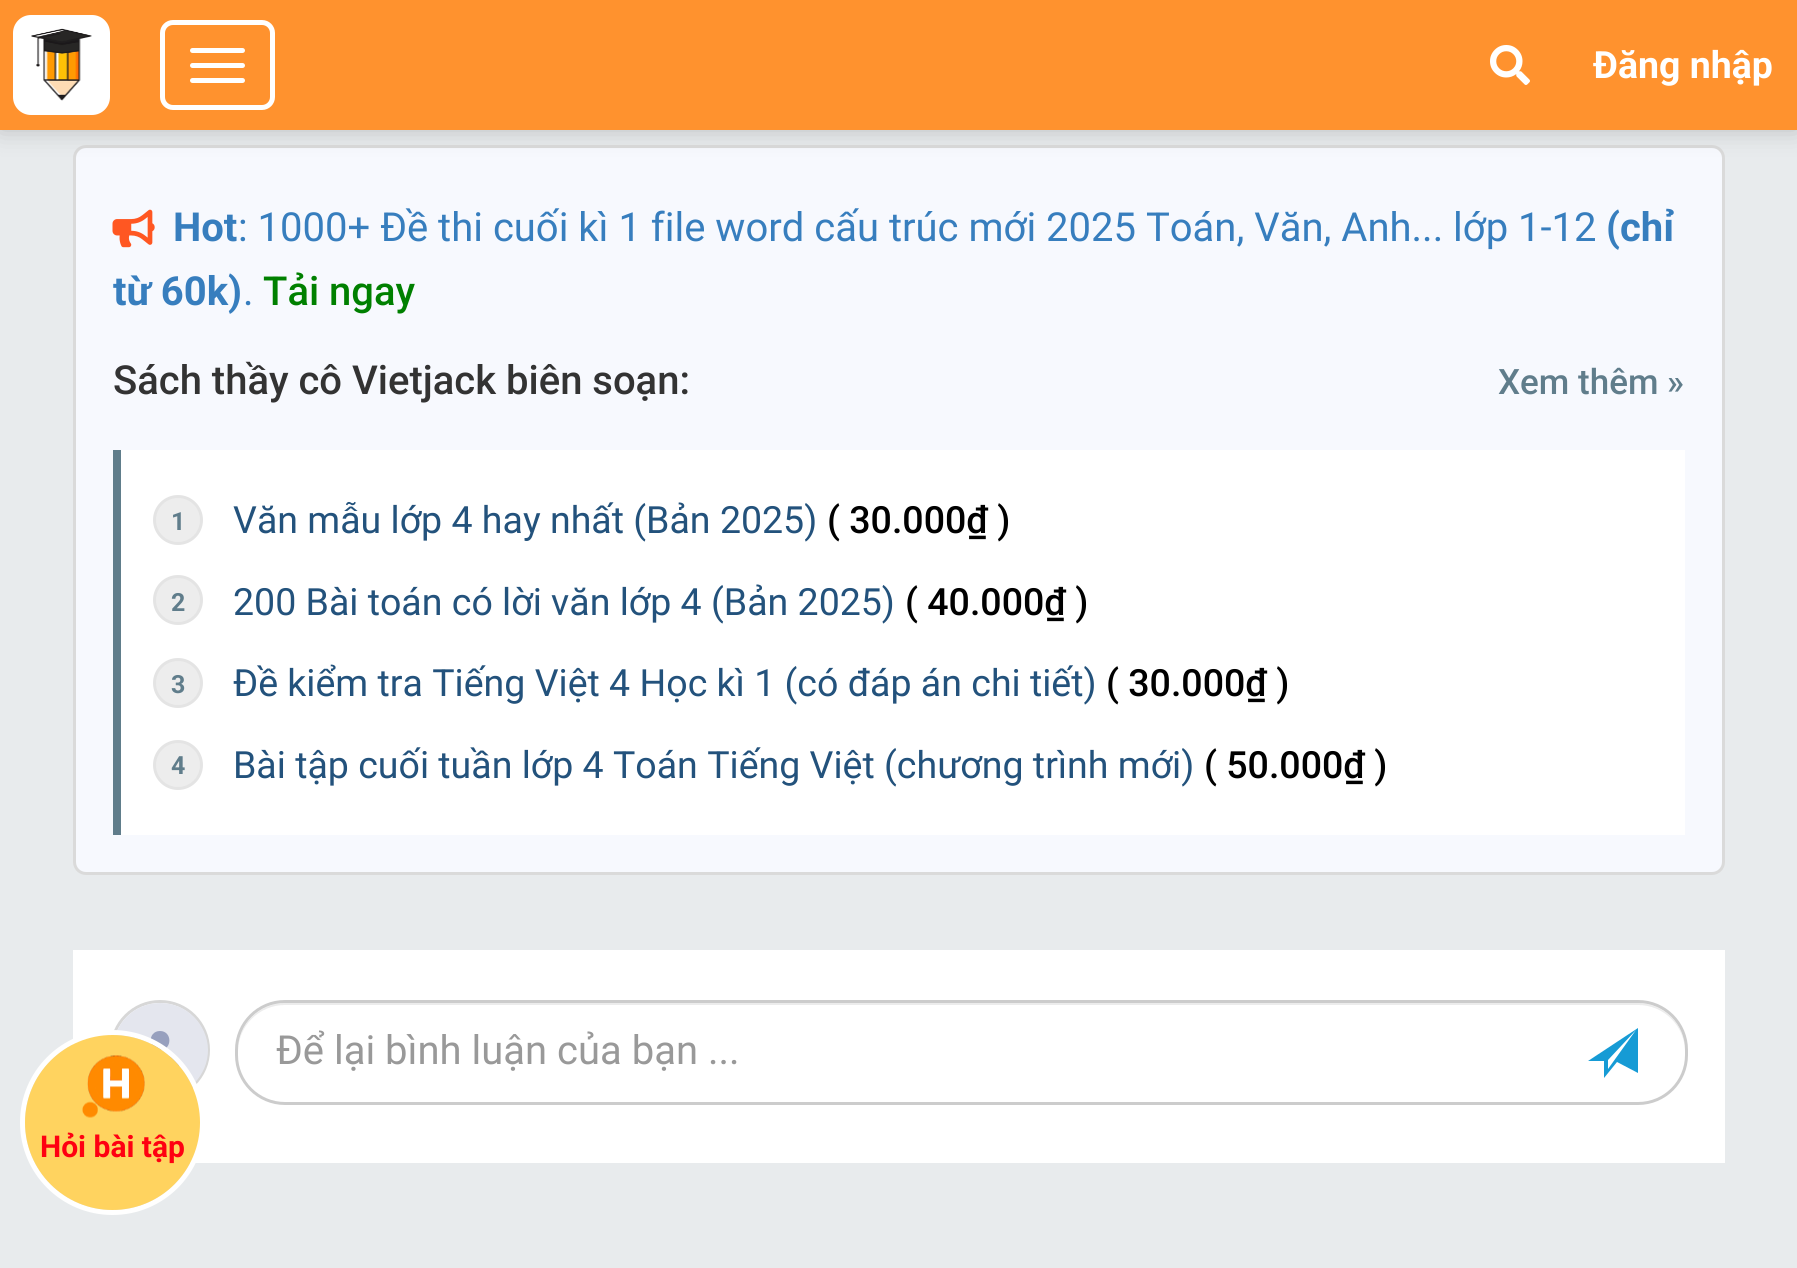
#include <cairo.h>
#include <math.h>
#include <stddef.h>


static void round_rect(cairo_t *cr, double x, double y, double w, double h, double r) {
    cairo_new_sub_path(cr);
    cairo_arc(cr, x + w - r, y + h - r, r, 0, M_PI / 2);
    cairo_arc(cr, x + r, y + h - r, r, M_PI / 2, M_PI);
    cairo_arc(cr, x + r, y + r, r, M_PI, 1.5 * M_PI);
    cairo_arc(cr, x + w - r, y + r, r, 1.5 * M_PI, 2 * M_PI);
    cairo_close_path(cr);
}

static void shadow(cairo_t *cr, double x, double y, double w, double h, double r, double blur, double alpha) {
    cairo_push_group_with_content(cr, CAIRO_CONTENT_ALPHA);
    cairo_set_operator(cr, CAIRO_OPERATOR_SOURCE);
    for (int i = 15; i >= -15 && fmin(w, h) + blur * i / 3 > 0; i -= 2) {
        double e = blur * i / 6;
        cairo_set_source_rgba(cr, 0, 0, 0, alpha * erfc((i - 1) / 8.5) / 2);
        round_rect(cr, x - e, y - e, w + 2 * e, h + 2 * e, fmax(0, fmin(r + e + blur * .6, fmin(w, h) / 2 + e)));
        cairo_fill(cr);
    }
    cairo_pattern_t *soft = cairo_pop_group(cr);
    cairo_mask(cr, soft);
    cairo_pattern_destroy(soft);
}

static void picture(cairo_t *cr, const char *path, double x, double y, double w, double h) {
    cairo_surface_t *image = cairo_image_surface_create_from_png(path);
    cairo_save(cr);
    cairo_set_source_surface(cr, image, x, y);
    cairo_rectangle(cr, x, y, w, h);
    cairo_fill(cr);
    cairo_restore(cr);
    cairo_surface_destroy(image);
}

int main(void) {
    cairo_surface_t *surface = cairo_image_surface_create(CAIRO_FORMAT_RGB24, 1797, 1268);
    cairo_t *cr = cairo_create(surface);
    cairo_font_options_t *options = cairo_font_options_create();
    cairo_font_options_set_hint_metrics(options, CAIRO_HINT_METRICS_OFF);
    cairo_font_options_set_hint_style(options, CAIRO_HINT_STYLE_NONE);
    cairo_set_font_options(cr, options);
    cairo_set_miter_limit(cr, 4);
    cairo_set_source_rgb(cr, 0.91, 0.918, 0.929);
    cairo_paint(cr);
    cairo_set_source_rgb(cr, 0.965, 0.976, 0.996);
    round_rect(cr, 74.5, 146.5, 1649, 727, 11.5);
    cairo_fill_preserve(cr);
    cairo_set_source_rgb(cr, 0.855, 0.855, 0.855);
    cairo_set_line_width(cr, 3);
    cairo_stroke(cr);
    cairo_set_source_rgb(cr, 0, 0, 0);
    shadow(cr, 0, 0, 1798, 130, 0, 12.5, 0.2);
    cairo_set_source_rgb(cr, 1, 0.573, 0.18);
    cairo_rectangle(cr, 0, 0, 1797, 130);
    cairo_fill(cr);
    cairo_set_source_rgb(cr, 1, 1, 1);
    round_rect(cr, 13, 15, 97, 100, 18);
    cairo_fill(cr);
    picture(cr, "img1.png", 31, 28, 61, 73);
    round_rect(cr, 162.5, 22.5, 110, 85, 10.5);
    cairo_set_line_width(cr, 5);
    cairo_stroke(cr);
    round_rect(cr, 190, 48, 55, 5, 2.5);
    cairo_fill(cr);
    round_rect(cr, 190, 63, 55, 5, 2.5);
    cairo_fill(cr);
    round_rect(cr, 190, 78, 55, 5, 2.5);
    cairo_fill(cr);
    picture(cr, "img2.png", 1490, 45, 40, 40);
    cairo_select_font_face(cr, "Roboto", CAIRO_FONT_SLANT_NORMAL, CAIRO_FONT_WEIGHT_BOLD);
    cairo_set_font_size(cr, 37.5);
    cairo_move_to(cr, 1593, 78);
    cairo_show_text(cr, "Đăng nhập");
    picture(cr, "img3.png", 112, 209, 43, 39);
    cairo_set_font_size(cr, 40);
    cairo_set_source_rgb(cr, 0.216, 0.494, 0.745);
    cairo_move_to(cr, 173, 241);
    cairo_show_text(cr, "Hot");
    cairo_select_font_face(cr, "Roboto", CAIRO_FONT_SLANT_NORMAL, CAIRO_FONT_WEIGHT_NORMAL);
    cairo_move_to(cr, 238, 241);
    cairo_show_text(cr, ": 1000+ Đề thi cuối kì 1 file word cấu trúc mới 2025 Toán, Văn, Anh... lớp 1-12");
    cairo_select_font_face(cr, "Roboto", CAIRO_FONT_SLANT_NORMAL, CAIRO_FONT_WEIGHT_BOLD);
    cairo_move_to(cr, 1606, 241);
    cairo_show_text(cr, "(chỉ");
    cairo_move_to(cr, 113, 305);
    cairo_show_text(cr, "từ 60k)");
    cairo_select_font_face(cr, "Roboto", CAIRO_FONT_SLANT_NORMAL, CAIRO_FONT_WEIGHT_NORMAL);
    cairo_move_to(cr, 243, 305);
    cairo_show_text(cr, ".");
    cairo_select_font_face(cr, "Roboto Medium", CAIRO_FONT_SLANT_NORMAL, CAIRO_FONT_WEIGHT_NORMAL);
    cairo_set_source_rgb(cr, 0, 0.502, 0);
    cairo_move_to(cr, 263, 305);
    cairo_show_text(cr, "Tải ngay");
    cairo_set_source_rgb(cr, 0.2, 0.2, 0.2);
    cairo_move_to(cr, 113, 394);
    cairo_show_text(cr, "Sách thầy cô Vietjack biên soạn:");
    cairo_set_font_size(cr, 35);
    cairo_set_source_rgb(cr, 0.376, 0.49, 0.545);
    cairo_move_to(cr, 1498, 394);
    cairo_show_text(cr, "Xem thêm »");
    cairo_set_source_rgb(cr, 1, 1, 1);
    cairo_rectangle(cr, 121, 450, 1564, 385);
    cairo_fill(cr);
    cairo_set_source_rgb(cr, 0.376, 0.49, 0.545);
    cairo_rectangle(cr, 113, 450, 8, 385);
    cairo_fill(cr);
    cairo_set_source_rgb(cr, 0.929, 0.929, 0.929);
    cairo_arc(cr, 178, 520, 23.5, 0, 2 * M_PI);
    cairo_fill_preserve(cr);
    cairo_set_source_rgb(cr, 0.894, 0.894, 0.894);
    cairo_set_line_width(cr, 3);
    cairo_stroke(cr);
    cairo_select_font_face(cr, "Roboto", CAIRO_FONT_SLANT_NORMAL, CAIRO_FONT_WEIGHT_BOLD);
    cairo_set_font_size(cr, 25);
    cairo_set_source_rgb(cr, 0.376, 0.49, 0.545);
    cairo_move_to(cr, 171, 530);
    cairo_show_text(cr, "1");
    cairo_select_font_face(cr, "Roboto", CAIRO_FONT_SLANT_NORMAL, CAIRO_FONT_WEIGHT_NORMAL);
    cairo_set_font_size(cr, 37.5);
    cairo_set_source_rgb(cr, 0.137, 0.322, 0.486);
    cairo_move_to(cr, 233, 533);
    cairo_show_text(cr, "Văn mẫu lớp 4 hay nhất (Bản 2025)");
    cairo_select_font_face(cr, "Roboto Medium", CAIRO_FONT_SLANT_NORMAL, CAIRO_FONT_WEIGHT_NORMAL);
    cairo_set_source_rgb(cr, 0, 0, 0);
    cairo_move_to(cr, 827, 533);
    cairo_show_text(cr, "( 30.000₫ )");
    cairo_set_source_rgb(cr, 0.929, 0.929, 0.929);
    cairo_new_path(cr);
    cairo_arc(cr, 178, 600, 23.5, 0, 2 * M_PI);
    cairo_fill_preserve(cr);
    cairo_set_source_rgb(cr, 0.894, 0.894, 0.894);
    cairo_stroke(cr);
    cairo_select_font_face(cr, "Roboto", CAIRO_FONT_SLANT_NORMAL, CAIRO_FONT_WEIGHT_BOLD);
    cairo_set_font_size(cr, 25);
    cairo_set_source_rgb(cr, 0.376, 0.49, 0.545);
    cairo_move_to(cr, 171, 611);
    cairo_show_text(cr, "2");
    cairo_select_font_face(cr, "Roboto", CAIRO_FONT_SLANT_NORMAL, CAIRO_FONT_WEIGHT_NORMAL);
    cairo_set_font_size(cr, 37.5);
    cairo_set_source_rgb(cr, 0.137, 0.322, 0.486);
    cairo_move_to(cr, 233, 615);
    cairo_show_text(cr, "200 Bài toán có lời văn lớp 4 (Bản 2025)");
    cairo_select_font_face(cr, "Roboto Medium", CAIRO_FONT_SLANT_NORMAL, CAIRO_FONT_WEIGHT_NORMAL);
    cairo_set_source_rgb(cr, 0, 0, 0);
    cairo_move_to(cr, 905, 615);
    cairo_show_text(cr, "( 40.000₫ )");
    cairo_set_source_rgb(cr, 0.929, 0.929, 0.929);
    cairo_new_path(cr);
    cairo_arc(cr, 178, 683, 23.5, 0, 2 * M_PI);
    cairo_fill_preserve(cr);
    cairo_set_source_rgb(cr, 0.894, 0.894, 0.894);
    cairo_stroke(cr);
    cairo_select_font_face(cr, "Roboto", CAIRO_FONT_SLANT_NORMAL, CAIRO_FONT_WEIGHT_BOLD);
    cairo_set_font_size(cr, 25);
    cairo_set_source_rgb(cr, 0.376, 0.49, 0.545);
    cairo_move_to(cr, 171, 693);
    cairo_show_text(cr, "3");
    cairo_select_font_face(cr, "Roboto", CAIRO_FONT_SLANT_NORMAL, CAIRO_FONT_WEIGHT_NORMAL);
    cairo_set_font_size(cr, 37.5);
    cairo_set_source_rgb(cr, 0.137, 0.322, 0.486);
    cairo_move_to(cr, 233, 696);
    cairo_show_text(cr, "Đề kiểm tra Tiếng Việt 4 Học kì 1 (có đáp án chi tiết)");
    cairo_select_font_face(cr, "Roboto Medium", CAIRO_FONT_SLANT_NORMAL, CAIRO_FONT_WEIGHT_NORMAL);
    cairo_set_source_rgb(cr, 0, 0, 0);
    cairo_move_to(cr, 1106, 696);
    cairo_show_text(cr, "( 30.000₫ )");
    cairo_set_source_rgb(cr, 0.929, 0.929, 0.929);
    cairo_new_path(cr);
    cairo_arc(cr, 178, 765, 23.5, 0, 2 * M_PI);
    cairo_fill_preserve(cr);
    cairo_set_source_rgb(cr, 0.894, 0.894, 0.894);
    cairo_stroke(cr);
    cairo_select_font_face(cr, "Roboto", CAIRO_FONT_SLANT_NORMAL, CAIRO_FONT_WEIGHT_BOLD);
    cairo_set_font_size(cr, 25);
    cairo_set_source_rgb(cr, 0.376, 0.49, 0.545);
    cairo_move_to(cr, 171, 774);
    cairo_show_text(cr, "4");
    cairo_select_font_face(cr, "Roboto", CAIRO_FONT_SLANT_NORMAL, CAIRO_FONT_WEIGHT_NORMAL);
    cairo_set_font_size(cr, 37.5);
    cairo_set_source_rgb(cr, 0.137, 0.322, 0.486);
    cairo_move_to(cr, 233, 778);
    cairo_show_text(cr, "Bài tập cuối tuần lớp 4 Toán Tiếng Việt (chương trình mới)");
    cairo_select_font_face(cr, "Roboto Medium", CAIRO_FONT_SLANT_NORMAL, CAIRO_FONT_WEIGHT_NORMAL);
    cairo_set_source_rgb(cr, 0, 0, 0);
    cairo_move_to(cr, 1204, 778);
    cairo_show_text(cr, "( 50.000₫ )");
    cairo_set_source_rgb(cr, 1, 1, 1);
    cairo_rectangle(cr, 73, 950, 1652, 213);
    cairo_fill(cr);
    cairo_arc(cr, 160, 1050, 48.5, 0, 2 * M_PI);
    cairo_set_source_rgb(cr, 0.843, 0.843, 0.843);
    cairo_stroke(cr);
    cairo_set_source_rgb(cr, 0.894, 0.902, 0.933);
    cairo_new_path(cr);
    cairo_move_to(cr, 160, 1003);
    cairo_curve_to(cr, 173, 1003, 185, 1008, 194, 1017);
    cairo_curve_to(cr, 202, 1025, 208, 1037, 208, 1050);
    cairo_curve_to(cr, 208, 1076, 186, 1098, 160, 1098);
    cairo_curve_to(cr, 147, 1098, 135, 1092, 127, 1084);
    cairo_curve_to(cr, 118, 1075, 113, 1063, 113, 1050);
    cairo_curve_to(cr, 113, 1024, 134, 1003, 160, 1003);
    cairo_close_path(cr);
    cairo_fill(cr);
    cairo_set_source_rgb(cr, 0.592, 0.627, 0.745);
    cairo_new_path(cr);
    cairo_move_to(cr, 160, 1050);
    cairo_curve_to(cr, 172.5, 1050, 172.5, 1031, 160, 1031);
    cairo_curve_to(cr, 147.5, 1031, 147.5, 1050, 160, 1050);
    cairo_move_to(cr, 160, 1055);
    cairo_curve_to(cr, 153.5, 1055, 141, 1058, 141, 1064);
    cairo_line_to(cr, 141, 1069);
    cairo_line_to(cr, 179, 1069);
    cairo_line_to(cr, 179, 1064);
    cairo_curve_to(cr, 179, 1058, 166.5, 1055, 160, 1055);
    cairo_fill(cr);
    cairo_set_source_rgb(cr, 0.925, 0.925, 0.925);
    cairo_new_path(cr);
    cairo_move_to(cr, 285, 1005);
    cairo_line_to(cr, 1638, 1005);
    cairo_curve_to(cr, 1664, 1005, 1685, 1026, 1685, 1052);
    cairo_line_to(cr, 1685, 1051);
    cairo_curve_to(cr, 1685, 1024, 1664, 1003, 1637, 1003);
    cairo_line_to(cr, 286, 1003);
    cairo_curve_to(cr, 259, 1003, 238, 1024, 238, 1051);
    cairo_line_to(cr, 238, 1052);
    cairo_curve_to(cr, 238, 1026, 259, 1005, 285, 1005);
    cairo_close_path(cr);
    cairo_fill(cr);
    round_rect(cr, 236.5, 1001.5, 1450, 102, 48.5);
    cairo_set_source_rgb(cr, 0.8, 0.8, 0.8);
    cairo_stroke(cr);
    cairo_select_font_face(cr, "Roboto", CAIRO_FONT_SLANT_NORMAL, CAIRO_FONT_WEIGHT_NORMAL);
    cairo_set_font_size(cr, 40);
    cairo_set_source_rgb(cr, 0.6, 0.6, 0.6);
    cairo_move_to(cr, 276, 1064);
    cairo_show_text(cr, "Để lại bình luận của bạn ...");
    cairo_set_source_rgb(cr, 0.086, 0.608, 0.835);
    cairo_new_path(cr);
    cairo_move_to(cr, 1638, 1073);
    cairo_line_to(cr, 1617, 1062);
    cairo_line_to(cr, 1604, 1078);
    cairo_line_to(cr, 1604, 1061);
    cairo_line_to(cr, 1588, 1061);
    cairo_line_to(cr, 1638, 1028);
    cairo_close_path(cr);
    cairo_move_to(cr, 1608, 1060);
    cairo_line_to(cr, 1608, 1069);
    cairo_line_to(cr, 1636, 1030);
    cairo_close_path(cr);
    cairo_fill(cr);
    cairo_arc(cr, 112.5, 1122.5, 90, 0, 2 * M_PI);
    cairo_set_source_rgb(cr, 1, 1, 1);
    cairo_set_line_width(cr, 5);
    cairo_stroke(cr);
    cairo_set_source_rgb(cr, 1, 0.827, 0.373);
    cairo_arc(cr, 112.5, 1122.5, 87.5, 0, 2 * M_PI);
    cairo_fill(cr);
    picture(cr, "img4.png", 82, 1055, 63, 63);
    cairo_select_font_face(cr, "Roboto", CAIRO_FONT_SLANT_NORMAL, CAIRO_FONT_WEIGHT_BOLD);
    cairo_set_font_size(cr, 30);
    cairo_set_source_rgb(cr, 1, 0, 0.067);
    cairo_move_to(cr, 40, 1157);
    cairo_show_text(cr, "Hỏi bài tập");
    cairo_surface_write_to_png(surface, "page.png");
    cairo_font_options_destroy(options);
    cairo_destroy(cr);
    cairo_surface_destroy(surface);
    return 0;
}
